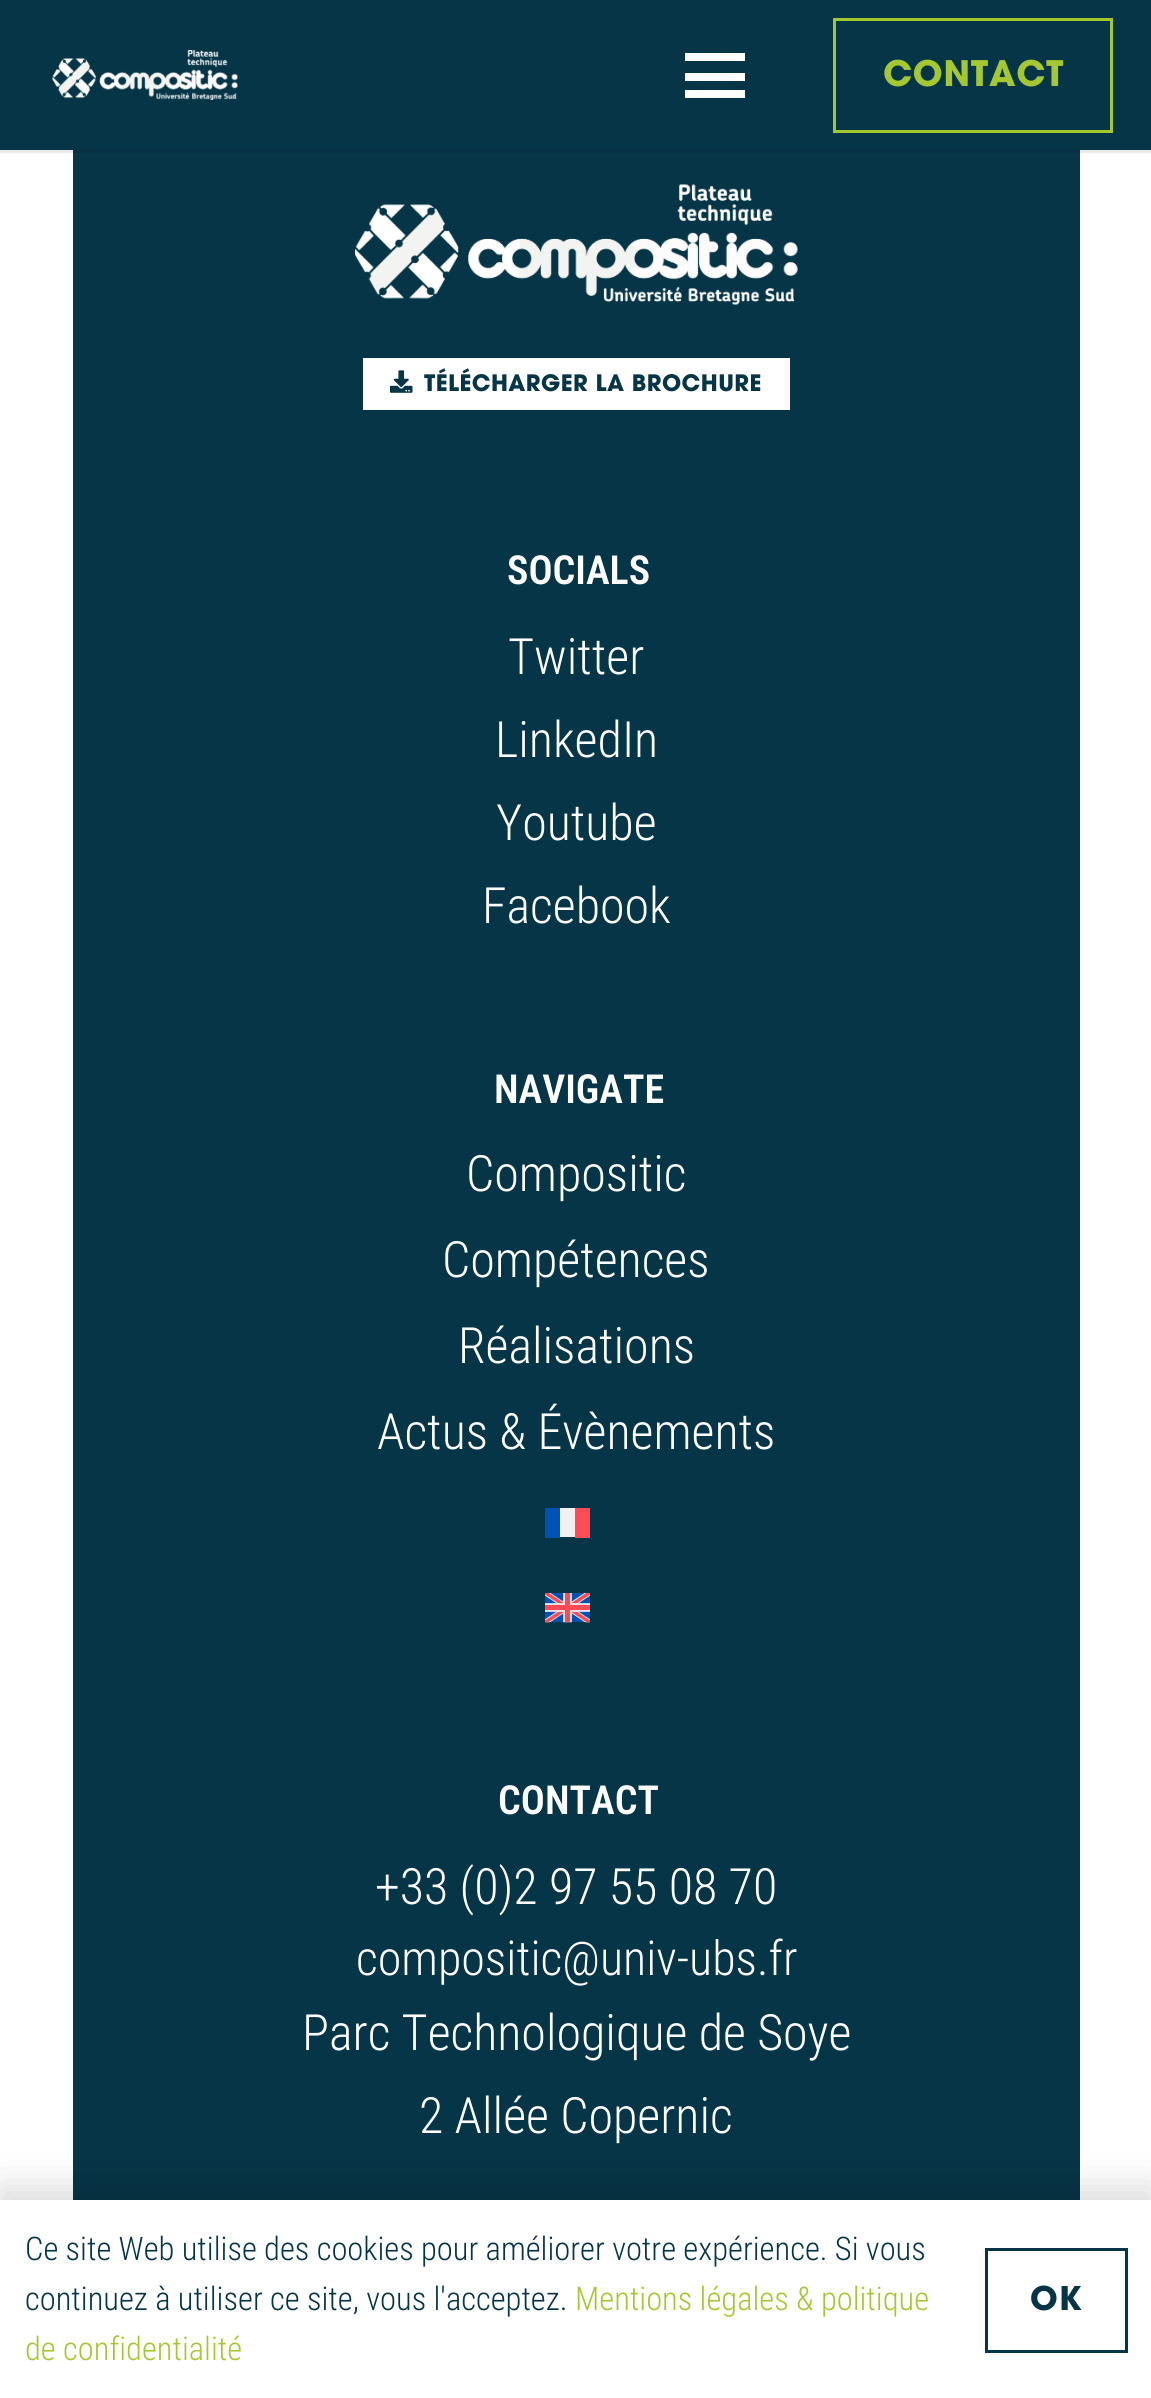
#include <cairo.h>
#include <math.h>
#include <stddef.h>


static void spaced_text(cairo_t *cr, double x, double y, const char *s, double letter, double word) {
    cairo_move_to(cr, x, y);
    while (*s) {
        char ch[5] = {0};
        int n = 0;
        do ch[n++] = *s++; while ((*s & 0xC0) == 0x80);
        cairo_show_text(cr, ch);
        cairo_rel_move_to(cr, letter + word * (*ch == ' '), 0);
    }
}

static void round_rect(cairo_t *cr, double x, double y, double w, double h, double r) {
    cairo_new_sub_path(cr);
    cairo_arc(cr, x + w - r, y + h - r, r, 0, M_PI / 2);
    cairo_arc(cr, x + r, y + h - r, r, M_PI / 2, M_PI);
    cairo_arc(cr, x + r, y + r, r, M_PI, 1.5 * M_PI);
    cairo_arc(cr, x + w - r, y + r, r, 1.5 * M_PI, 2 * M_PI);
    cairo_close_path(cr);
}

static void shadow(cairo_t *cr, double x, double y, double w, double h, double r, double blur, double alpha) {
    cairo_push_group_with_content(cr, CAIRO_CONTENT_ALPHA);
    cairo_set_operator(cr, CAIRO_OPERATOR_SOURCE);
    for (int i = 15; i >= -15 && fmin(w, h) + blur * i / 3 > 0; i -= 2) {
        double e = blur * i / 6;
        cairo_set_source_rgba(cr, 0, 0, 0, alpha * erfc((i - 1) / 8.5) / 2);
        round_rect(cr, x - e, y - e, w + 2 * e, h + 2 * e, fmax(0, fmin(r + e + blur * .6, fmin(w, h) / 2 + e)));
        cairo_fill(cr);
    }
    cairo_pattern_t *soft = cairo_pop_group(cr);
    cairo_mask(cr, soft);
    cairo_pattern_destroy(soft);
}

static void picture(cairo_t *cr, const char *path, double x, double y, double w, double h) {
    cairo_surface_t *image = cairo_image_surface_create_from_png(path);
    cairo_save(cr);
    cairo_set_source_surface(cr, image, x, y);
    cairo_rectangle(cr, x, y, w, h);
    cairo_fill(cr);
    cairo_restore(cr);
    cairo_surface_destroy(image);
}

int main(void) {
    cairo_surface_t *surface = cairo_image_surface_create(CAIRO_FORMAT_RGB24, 1151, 2398);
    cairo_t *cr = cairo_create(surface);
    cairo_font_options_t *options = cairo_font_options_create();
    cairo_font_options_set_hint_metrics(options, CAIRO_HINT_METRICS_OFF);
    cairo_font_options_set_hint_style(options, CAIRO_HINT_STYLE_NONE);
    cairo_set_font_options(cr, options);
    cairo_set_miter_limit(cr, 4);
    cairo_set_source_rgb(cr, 1, 1, 1);
    cairo_paint(cr);
    cairo_set_source_rgb(cr, 0.024, 0.208, 0.278);
    cairo_rectangle(cr, 73, 150, 1007, 2050);
    cairo_fill(cr);
    cairo_set_source_rgba(cr, 0, 0, 0, 0.08);
    cairo_new_path(cr);
    cairo_move_to(cr, 0, 150);
    cairo_line_to(cr, 0, 153);
    cairo_line_to(cr, 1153, 153);
    cairo_line_to(cr, 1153, 3);
    cairo_line_to(cr, 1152, 3);
    cairo_line_to(cr, 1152, 150);
    cairo_close_path(cr);
    cairo_fill(cr);
    cairo_set_source_rgb(cr, 0.024, 0.208, 0.278);
    cairo_rectangle(cr, 0, 0, 1151, 150);
    cairo_fill(cr);
    picture(cr, "img1.png", 52, 50, 186, 50);
    cairo_set_source_rgb(cr, 1, 1, 1);
    cairo_rectangle(cr, 685, 73, 60, 8);
    cairo_fill(cr);
    cairo_rectangle(cr, 685, 53, 60, 8);
    cairo_fill(cr);
    cairo_rectangle(cr, 685, 90, 60, 8);
    cairo_fill(cr);
    cairo_rectangle(cr, 834.5, 19.5, 277, 112);
    cairo_set_source_rgb(cr, 0.647, 0.78, 0.192);
    cairo_set_line_width(cr, 3);
    cairo_stroke(cr);
    cairo_select_font_face(cr, "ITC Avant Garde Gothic", CAIRO_FONT_SLANT_NORMAL, CAIRO_FONT_WEIGHT_BOLD);
    cairo_set_font_size(cr, 35);
    spaced_text(cr, 883, 86, "CONTACT", 0.75, 0);
    picture(cr, "img2.png", 355, 184, 443, 121);
    cairo_set_source_rgb(cr, 1, 1, 1);
    cairo_rectangle(cr, 363, 358, 427, 52);
    cairo_fill(cr);
    picture(cr, "img3.png", 390, 370, 23, 23);
    cairo_set_font_size(cr, 22.5);
    cairo_set_source_rgb(cr, 0.024, 0.208, 0.278);
    spaced_text(cr, 424, 391, "TÉLÉCHARGER LA BROCHURE", 0.45, 0);
    cairo_select_font_face(cr, "Roboto Condensed SemiBold", CAIRO_FONT_SLANT_NORMAL, CAIRO_FONT_WEIGHT_NORMAL);
    cairo_set_font_size(cr, 40);
    cairo_set_source_rgb(cr, 1, 1, 1);
    cairo_move_to(cr, 507, 584);
    cairo_show_text(cr, "SOCIALS");
    cairo_select_font_face(cr, "Roboto Condensed Light", CAIRO_FONT_SLANT_NORMAL, CAIRO_FONT_WEIGHT_NORMAL);
    cairo_set_font_size(cr, 50);
    cairo_move_to(cr, 508, 674);
    cairo_show_text(cr, "Twitter");
    cairo_move_to(cr, 495, 757);
    cairo_show_text(cr, "LinkedIn");
    cairo_move_to(cr, 496, 840);
    cairo_show_text(cr, "Youtube");
    cairo_move_to(cr, 482, 923);
    cairo_show_text(cr, "Facebook");
    cairo_select_font_face(cr, "Roboto Condensed SemiBold", CAIRO_FONT_SLANT_NORMAL, CAIRO_FONT_WEIGHT_NORMAL);
    cairo_set_font_size(cr, 40);
    cairo_move_to(cr, 494, 1103);
    cairo_show_text(cr, "NAVIGATE");
    cairo_select_font_face(cr, "Roboto Condensed Light", CAIRO_FONT_SLANT_NORMAL, CAIRO_FONT_WEIGHT_NORMAL);
    cairo_set_font_size(cr, 50);
    cairo_move_to(cr, 466, 1191);
    cairo_show_text(cr, "Compositic");
    cairo_move_to(cr, 442, 1277);
    cairo_show_text(cr, "Compétences");
    cairo_move_to(cr, 458, 1363);
    cairo_show_text(cr, "Réalisations");
    cairo_move_to(cr, 377, 1449);
    cairo_show_text(cr, "Actus & Évènements");
    cairo_set_source_rgb(cr, 0, 0.322, 0.706);
    cairo_rectangle(cr, 545, 1508, 15, 30);
    cairo_fill(cr);
    cairo_set_source_rgb(cr, 0.941, 0.941, 0.941);
    cairo_rectangle(cr, 560, 1508, 15, 29);
    cairo_fill(cr);
    cairo_set_source_rgb(cr, 1, 0.294, 0.333);
    cairo_rectangle(cr, 575, 1508, 15, 30);
    cairo_fill(cr);
    picture(cr, "img4.png", 545, 1593, 45, 30);
    cairo_select_font_face(cr, "Roboto Condensed SemiBold", CAIRO_FONT_SLANT_NORMAL, CAIRO_FONT_WEIGHT_NORMAL);
    cairo_set_font_size(cr, 40);
    cairo_set_source_rgb(cr, 1, 1, 1);
    cairo_move_to(cr, 498, 1814);
    cairo_show_text(cr, "CONTACT");
    cairo_select_font_face(cr, "Roboto Condensed Light", CAIRO_FONT_SLANT_NORMAL, CAIRO_FONT_WEIGHT_NORMAL);
    cairo_set_font_size(cr, 50);
    cairo_move_to(cr, 375, 1904);
    cairo_show_text(cr, "+33 (0)2 97 55 08 70");
    cairo_set_font_size(cr, 48);
    cairo_move_to(cr, 356, 1975);
    cairo_show_text(cr, "compositic@univ-ubs.fr");
    cairo_set_font_size(cr, 50);
    cairo_move_to(cr, 302, 2050);
    cairo_show_text(cr, "Parc Technologique de Soye");
    cairo_move_to(cr, 419, 2133);
    cairo_show_text(cr, "2 Allée Copernic");
    cairo_set_source_rgb(cr, 0, 0, 0);
    shadow(cr, 0, 2188, 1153, 200, 0, 19, 0.15);
    cairo_set_source_rgb(cr, 1, 1, 1);
    cairo_rectangle(cr, 0, 2200, 1151, 198);
    cairo_fill(cr);
    cairo_set_font_size(cr, 32.5);
    cairo_set_source_rgb(cr, 0.024, 0.208, 0.278);
    cairo_move_to(cr, 25, 2260);
    cairo_show_text(cr, "Ce site Web utilise des cookies pour améliorer votre expérience. Si vous");
    cairo_move_to(cr, 25, 2310);
    cairo_show_text(cr, "continuez à utiliser ce site, vous l'acceptez.");
    cairo_set_source_rgb(cr, 0.647, 0.78, 0.192);
    cairo_move_to(cr, 575, 2310);
    cairo_show_text(cr, "Mentions légales & politique");
    cairo_move_to(cr, 25, 2360);
    cairo_show_text(cr, "de confidentialité");
    cairo_rectangle(cr, 986.5, 2249.5, 140, 102);
    cairo_set_source_rgb(cr, 0.024, 0.208, 0.278);
    cairo_stroke(cr);
    cairo_select_font_face(cr, "ITC Avant Garde Gothic", CAIRO_FONT_SLANT_NORMAL, CAIRO_FONT_WEIGHT_BOLD);
    spaced_text(cr, 1030, 2310, "OK", 1, 0);
    cairo_surface_write_to_png(surface, "page.png");
    cairo_font_options_destroy(options);
    cairo_destroy(cr);
    cairo_surface_destroy(surface);
    return 0;
}
